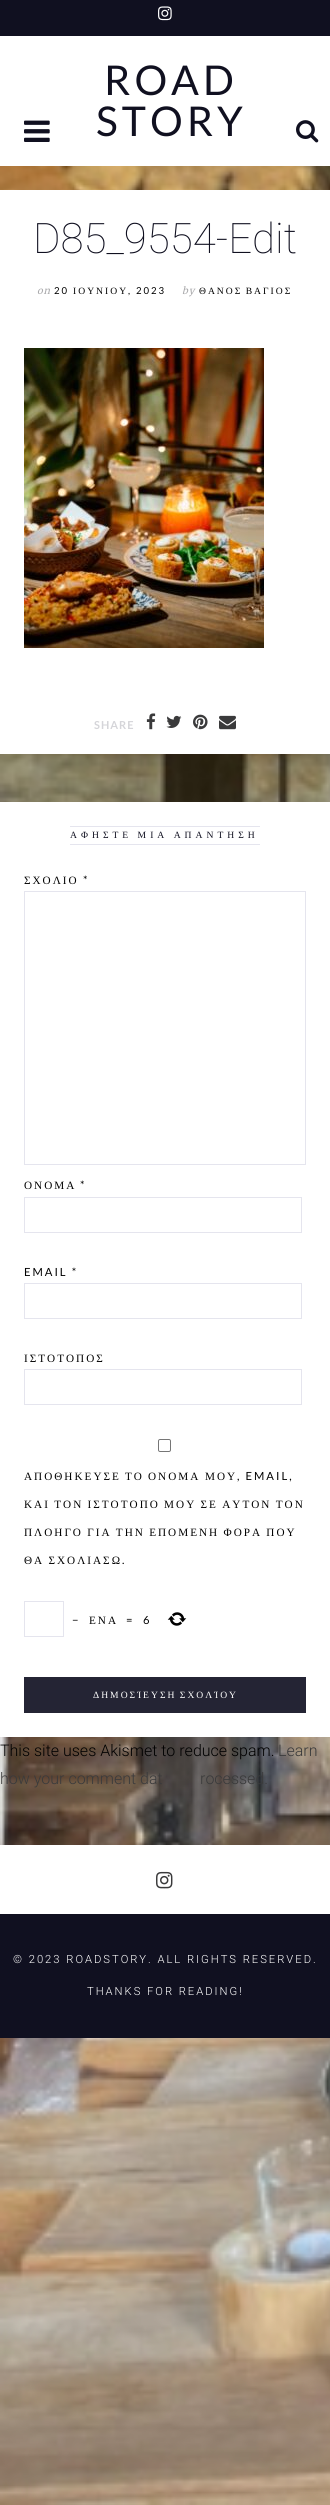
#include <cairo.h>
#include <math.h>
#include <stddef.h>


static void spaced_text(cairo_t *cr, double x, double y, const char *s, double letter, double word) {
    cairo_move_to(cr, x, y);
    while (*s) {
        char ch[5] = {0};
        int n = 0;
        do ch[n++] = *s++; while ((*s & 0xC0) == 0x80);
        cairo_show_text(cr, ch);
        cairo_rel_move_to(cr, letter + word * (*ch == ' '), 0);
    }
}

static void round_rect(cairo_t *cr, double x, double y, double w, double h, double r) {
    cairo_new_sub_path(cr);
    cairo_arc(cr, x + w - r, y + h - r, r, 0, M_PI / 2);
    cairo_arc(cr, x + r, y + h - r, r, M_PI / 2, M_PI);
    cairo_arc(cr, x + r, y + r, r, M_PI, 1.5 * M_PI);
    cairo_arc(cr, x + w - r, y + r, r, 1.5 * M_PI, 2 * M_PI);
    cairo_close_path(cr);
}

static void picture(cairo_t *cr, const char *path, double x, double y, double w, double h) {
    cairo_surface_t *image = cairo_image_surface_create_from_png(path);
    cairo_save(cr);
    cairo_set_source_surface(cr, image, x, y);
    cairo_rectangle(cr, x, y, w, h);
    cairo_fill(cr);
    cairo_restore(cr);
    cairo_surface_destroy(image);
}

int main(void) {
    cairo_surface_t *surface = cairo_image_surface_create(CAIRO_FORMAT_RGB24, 330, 2505);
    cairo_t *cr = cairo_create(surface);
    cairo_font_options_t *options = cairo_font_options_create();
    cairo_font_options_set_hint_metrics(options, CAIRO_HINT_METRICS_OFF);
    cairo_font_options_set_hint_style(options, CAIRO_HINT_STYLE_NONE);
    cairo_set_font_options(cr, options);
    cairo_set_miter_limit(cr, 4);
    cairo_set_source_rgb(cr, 1, 1, 1);
    cairo_paint(cr);
    picture(cr, "img1.png", 0, 166, 330, 2339);
    cairo_set_source_rgb(cr, 0.063, 0.063, 0.125);
    cairo_rectangle(cr, 0, 0, 330, 36);
    cairo_fill(cr);
    picture(cr, "img2.png", 158, 6, 14, 15);
    picture(cr, "img3.png", 24, 120, 26, 22);
    cairo_select_font_face(cr, "Lato", CAIRO_FONT_SLANT_NORMAL, CAIRO_FONT_WEIGHT_NORMAL);
    cairo_set_font_size(cr, 41);
    spaced_text(cr, 104, 95, "ROAD", 4, 0);
    spaced_text(cr, 96, 136, "STORY", 4, 0);
    picture(cr, "img4.png", 296, 120, 23, 23);
    cairo_set_source_rgb(cr, 1, 1, 1);
    cairo_rectangle(cr, 0, 190, 330, 564);
    cairo_fill(cr);
    cairo_select_font_face(cr, "Roboto Thin", CAIRO_FONT_SLANT_NORMAL, CAIRO_FONT_WEIGHT_NORMAL);
    cairo_set_font_size(cr, 42);
    cairo_set_source_rgb(cr, 0.063, 0.063, 0.125);
    cairo_move_to(cr, 33, 253);
    cairo_show_text(cr, "D85_9554-Edit");
    cairo_select_font_face(cr, "Merriweather Light", CAIRO_FONT_SLANT_ITALIC, CAIRO_FONT_WEIGHT_NORMAL);
    cairo_set_font_size(cr, 9.6);
    cairo_set_source_rgb(cr, 0.667, 0.667, 0.675);
    spaced_text(cr, 37, 294, "on", 1, 0);
    cairo_select_font_face(cr, "Lato", CAIRO_FONT_SLANT_NORMAL, CAIRO_FONT_WEIGHT_NORMAL);
    cairo_set_source_rgb(cr, 0, 0, 0);
    spaced_text(cr, 54, 294, "20", 2, 0);
    cairo_select_font_face(cr, "Liberation Serif", CAIRO_FONT_SLANT_NORMAL, CAIRO_FONT_WEIGHT_NORMAL);
    spaced_text(cr, 73, 294, "ΙΟΥΝΙΟΥ", 2, 0);
    cairo_select_font_face(cr, "Lato", CAIRO_FONT_SLANT_NORMAL, CAIRO_FONT_WEIGHT_NORMAL);
    spaced_text(cr, 128, 294, ", 2023", 2, 0);
    cairo_select_font_face(cr, "Merriweather Light", CAIRO_FONT_SLANT_ITALIC, CAIRO_FONT_WEIGHT_NORMAL);
    cairo_set_source_rgb(cr, 0.667, 0.667, 0.675);
    spaced_text(cr, 182, 294, "by", 1, 0);
    cairo_select_font_face(cr, "Liberation Serif", CAIRO_FONT_SLANT_NORMAL, CAIRO_FONT_WEIGHT_NORMAL);
    cairo_set_source_rgb(cr, 0, 0, 0);
    spaced_text(cr, 199, 294, "ΘΑΝΟΣ ΒΑΓΙΟΣ", 2, -1);
    picture(cr, "img5.png", 24, 348, 240, 300);
    cairo_select_font_face(cr, "Lato", CAIRO_FONT_SLANT_NORMAL, CAIRO_FONT_WEIGHT_BOLD);
    cairo_set_font_size(cr, 11);
    cairo_set_source_rgb(cr, 0.835, 0.835, 0.851);
    spaced_text(cr, 94, 729, "SHARE", 1, 0);
    picture(cr, "img6.png", 146, 713, 10, 17);
    picture(cr, "img7.png", 166, 715, 16, 13);
    picture(cr, "img8.png", 193, 714, 15, 16);
    picture(cr, "img9.png", 219, 715, 17, 15);
    cairo_set_source_rgb(cr, 1, 1, 1);
    cairo_rectangle(cr, 0, 802, 330, 935);
    cairo_fill(cr);
    cairo_set_source_rgb(cr, 0.898, 0.898, 0.933);
    cairo_rectangle(cr, 70, 826, 190, 1);
    cairo_fill(cr);
    cairo_select_font_face(cr, "Liberation Serif", CAIRO_FONT_SLANT_NORMAL, CAIRO_FONT_WEIGHT_NORMAL);
    cairo_set_font_size(cr, 9.6);
    cairo_set_source_rgb(cr, 0.063, 0.063, 0.125);
    spaced_text(cr, 70, 838, "ΑΦΗΣΤΕ ΜΙΑ ΑΠΑΝΤΗΣΗ", 4, -1);
    cairo_set_source_rgb(cr, 0.898, 0.898, 0.933);
    cairo_rectangle(cr, 70, 844, 190, 1);
    cairo_fill(cr);
    cairo_set_font_size(cr, 11.2);
    cairo_set_source_rgb(cr, 0, 0, 0);
    spaced_text(cr, 24, 884, "ΣΧΟΛΙΟ", 2, 0);
    cairo_select_font_face(cr, "Lato", CAIRO_FONT_SLANT_NORMAL, CAIRO_FONT_WEIGHT_NORMAL);
    spaced_text(cr, 83, 884, "*", 2, 0);
    cairo_rectangle(cr, 24.5, 891.5, 281, 273);
    cairo_set_source_rgb(cr, 0.898, 0.898, 0.933);
    cairo_set_line_width(cr, 1);
    cairo_stroke(cr);
    cairo_select_font_face(cr, "Liberation Serif", CAIRO_FONT_SLANT_NORMAL, CAIRO_FONT_WEIGHT_NORMAL);
    cairo_set_source_rgb(cr, 0, 0, 0);
    spaced_text(cr, 24, 1189, "ΟΝΟΜΑ", 2, 0);
    cairo_select_font_face(cr, "Lato", CAIRO_FONT_SLANT_NORMAL, CAIRO_FONT_WEIGHT_NORMAL);
    spaced_text(cr, 80, 1189, "*", 2, 0);
    cairo_rectangle(cr, 24.5, 1197.5, 277, 35);
    cairo_set_source_rgb(cr, 0.898, 0.898, 0.933);
    cairo_stroke(cr);
    cairo_set_source_rgb(cr, 0, 0, 0);
    spaced_text(cr, 24, 1276, "EMAIL *", 2, 0);
    cairo_rectangle(cr, 24.5, 1283.5, 277, 35);
    cairo_set_source_rgb(cr, 0.898, 0.898, 0.933);
    cairo_stroke(cr);
    cairo_select_font_face(cr, "Liberation Serif", CAIRO_FONT_SLANT_NORMAL, CAIRO_FONT_WEIGHT_NORMAL);
    cairo_set_source_rgb(cr, 0, 0, 0);
    spaced_text(cr, 24, 1362, "ΙΣΤΟΤΟΠΟΣ", 2, 0);
    cairo_rectangle(cr, 24.5, 1369.5, 277, 35);
    cairo_set_source_rgb(cr, 0.898, 0.898, 0.933);
    cairo_stroke(cr);
    round_rect(cr, 158.5, 1439.5, 12, 12, 1.5);
    cairo_set_source_rgb(cr, 0.463, 0.463, 0.463);
    cairo_stroke(cr);
    cairo_set_source_rgb(cr, 0, 0, 0);
    spaced_text(cr, 24, 1480, "ΑΠΟΘΗΚΕΥΣΕ", 2, 0);
    spaced_text(cr, 125, 1480, "ΤΟ", 2, 0);
    spaced_text(cr, 148, 1480, "ΟΝΟΜΑ", 2, 0);
    spaced_text(cr, 205, 1480, "ΜΟΥ", 2, 0);
    cairo_select_font_face(cr, "Lato", CAIRO_FONT_SLANT_NORMAL, CAIRO_FONT_WEIGHT_NORMAL);
    spaced_text(cr, 237, 1480, ", EMAIL,", 2, 0);
    cairo_select_font_face(cr, "Liberation Serif", CAIRO_FONT_SLANT_NORMAL, CAIRO_FONT_WEIGHT_NORMAL);
    spaced_text(cr, 24, 1508, "ΚΑΙ ΤΟΝ ΙΣΤΟΤΟΠΟ ΜΟΥ ΣΕ ΑΥΤΟΝ ΤΟΝ", 2, -0.5);
    spaced_text(cr, 24, 1536, "ΠΛΟΗΓΟ ΓΙΑ ΤΗΝ ΕΠΟΜΕΝΗ ΦΟΡΑ ΠΟΥ", 2, -0.5);
    spaced_text(cr, 24, 1564, "ΘΑ ΣΧΟΛΙΑΣΩ", 2, -0.5);
    cairo_select_font_face(cr, "Lato", CAIRO_FONT_SLANT_NORMAL, CAIRO_FONT_WEIGHT_NORMAL);
    spaced_text(cr, 122, 1564, ".", 2, 0);
    cairo_rectangle(cr, 24.5, 1601.5, 39, 35);
    cairo_set_source_rgb(cr, 0.898, 0.898, 0.933);
    cairo_stroke(cr);
    cairo_set_source_rgb(cr, 0, 0, 0);
    spaced_text(cr, 72, 1624, "−", 2, 0);
    cairo_select_font_face(cr, "Liberation Serif", CAIRO_FONT_SLANT_NORMAL, CAIRO_FONT_WEIGHT_NORMAL);
    spaced_text(cr, 89, 1624, "ΕΝΑ", 2, 0);
    cairo_select_font_face(cr, "Lato", CAIRO_FONT_SLANT_NORMAL, CAIRO_FONT_WEIGHT_NORMAL);
    spaced_text(cr, 126, 1624, "=", 2, 0);
    spaced_text(cr, 143, 1624, "6", 2, 0);
    picture(cr, "img10.png", 167, 1612, 20, 14);
    cairo_set_source_rgb(cr, 0.141, 0.141, 0.204);
    cairo_rectangle(cr, 24, 1677, 282, 36);
    cairo_fill(cr);
    cairo_select_font_face(cr, "Liberation Serif", CAIRO_FONT_SLANT_NORMAL, CAIRO_FONT_WEIGHT_NORMAL);
    cairo_set_font_size(cr, 9.6);
    cairo_set_source_rgb(cr, 1, 1, 1);
    spaced_text(cr, 93, 1698, "ΔΗΜΟΣΊΕΥΣΗ ΣΧΟΛΊΟΥ", 2, -1);
    cairo_select_font_face(cr, "Roboto Light", CAIRO_FONT_SLANT_NORMAL, CAIRO_FONT_WEIGHT_NORMAL);
    cairo_set_font_size(cr, 16);
    cairo_set_source_rgb(cr, 0, 0, 0);
    cairo_move_to(cr, 0, 1756);
    cairo_show_text(cr, "This site uses Akismet to reduce spam.");
    cairo_set_source_rgb(cr, 0.227, 0.227, 0.231);
    cairo_move_to(cr, 278, 1756);
    cairo_show_text(cr, "Learn");
    cairo_move_to(cr, 0, 1784);
    cairo_show_text(cr, "how your comment dat");
    cairo_move_to(cr, 200, 1784);
    cairo_show_text(cr, "rocessed.");
    cairo_set_source_rgb(cr, 1, 1, 1);
    cairo_rectangle(cr, 0, 1845, 330, 69);
    cairo_fill(cr);
    picture(cr, "img11.png", 156, 1871, 17, 18);
    cairo_set_source_rgb(cr, 0.063, 0.063, 0.125);
    cairo_rectangle(cr, 0, 1914, 330, 124);
    cairo_fill(cr);
    cairo_set_font_size(cr, 11.2);
    cairo_set_source_rgb(cr, 1, 1, 1);
    spaced_text(cr, 13, 1963, "© 2023 ROADSTORY. ALL RIGHTS RESERVED.", 2, 0);
    spaced_text(cr, 87, 1995, "THANKS FOR READING!", 2, 0);
    cairo_surface_write_to_png(surface, "page.png");
    cairo_font_options_destroy(options);
    cairo_destroy(cr);
    cairo_surface_destroy(surface);
    return 0;
}
